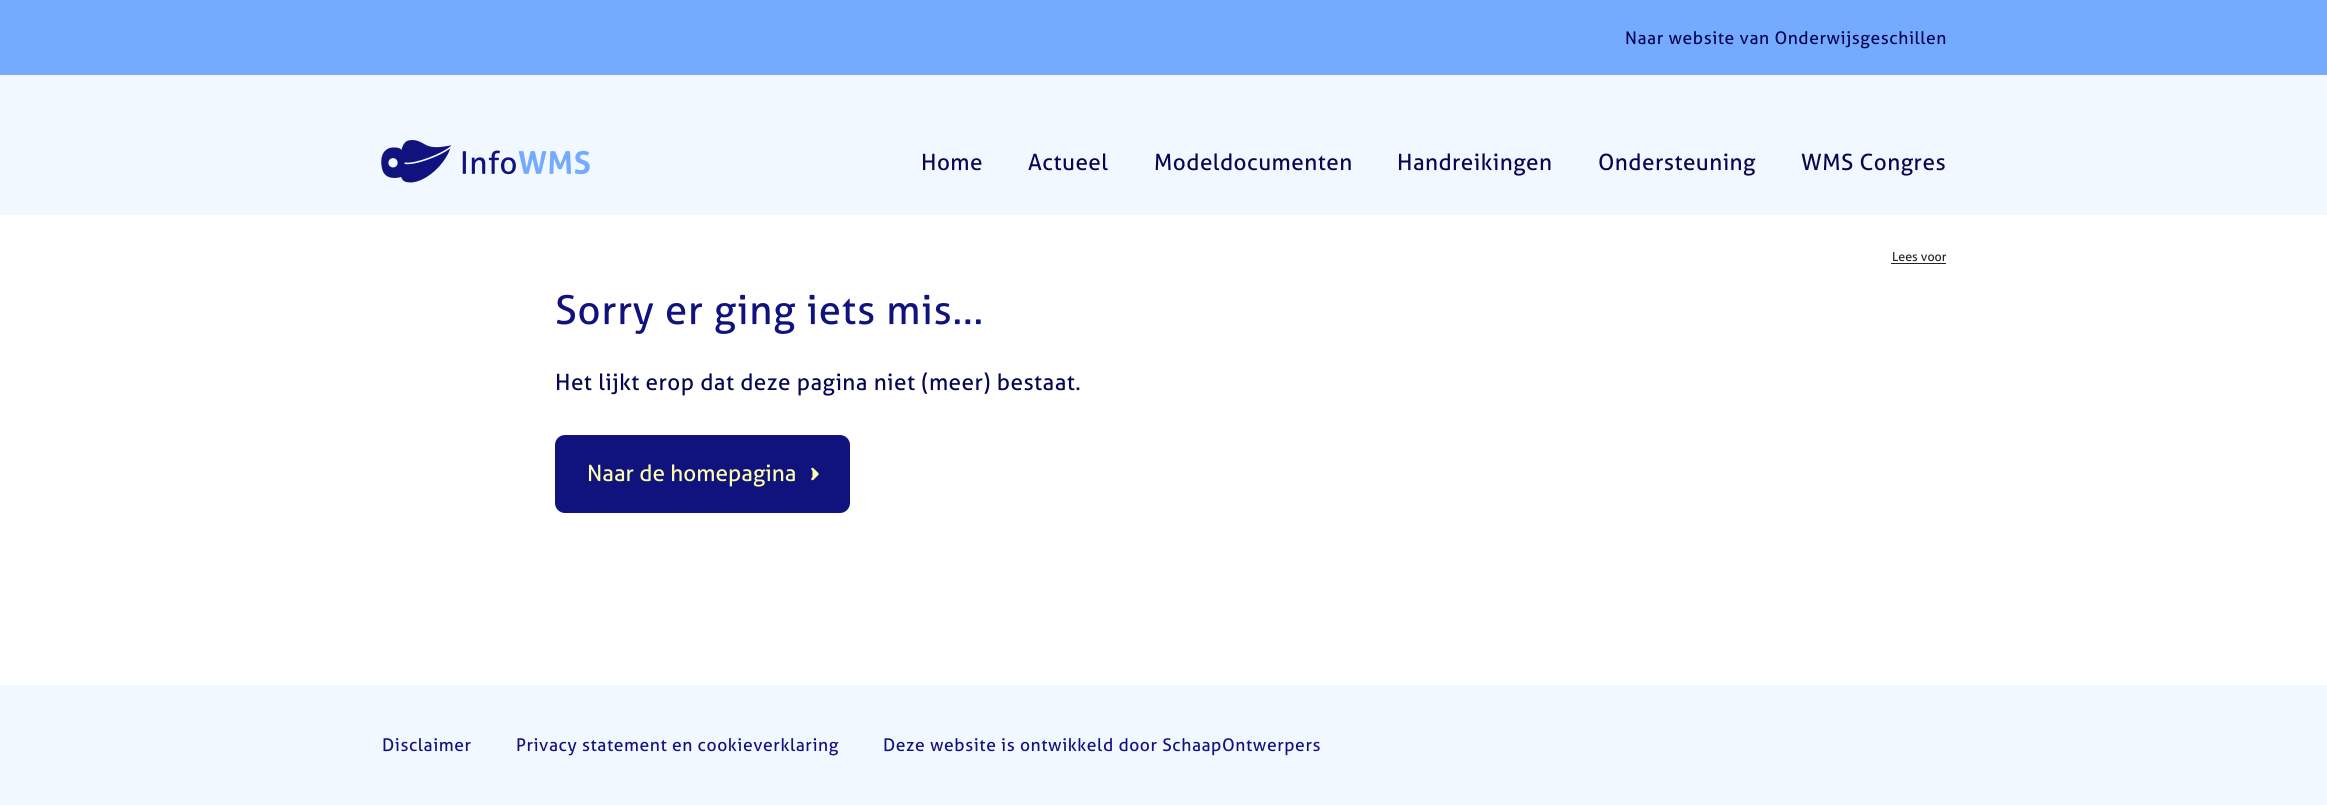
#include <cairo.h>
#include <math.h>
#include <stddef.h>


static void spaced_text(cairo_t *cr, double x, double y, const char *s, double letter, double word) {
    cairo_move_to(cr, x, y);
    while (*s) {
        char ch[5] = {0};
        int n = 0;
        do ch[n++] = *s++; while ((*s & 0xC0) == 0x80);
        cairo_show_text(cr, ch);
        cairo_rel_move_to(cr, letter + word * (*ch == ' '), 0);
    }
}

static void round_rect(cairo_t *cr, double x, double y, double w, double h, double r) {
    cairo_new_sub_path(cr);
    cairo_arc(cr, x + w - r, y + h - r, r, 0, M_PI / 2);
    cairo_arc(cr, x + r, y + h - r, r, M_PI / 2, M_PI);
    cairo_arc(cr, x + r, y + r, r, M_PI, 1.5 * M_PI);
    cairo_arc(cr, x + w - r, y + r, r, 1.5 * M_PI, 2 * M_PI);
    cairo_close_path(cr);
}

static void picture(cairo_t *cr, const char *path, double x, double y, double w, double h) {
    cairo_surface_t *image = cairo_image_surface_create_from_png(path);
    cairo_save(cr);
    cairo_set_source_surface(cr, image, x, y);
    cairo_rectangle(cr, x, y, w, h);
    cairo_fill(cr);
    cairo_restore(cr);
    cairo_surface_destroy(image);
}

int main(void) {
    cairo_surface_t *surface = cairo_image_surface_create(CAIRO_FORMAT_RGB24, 2327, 805);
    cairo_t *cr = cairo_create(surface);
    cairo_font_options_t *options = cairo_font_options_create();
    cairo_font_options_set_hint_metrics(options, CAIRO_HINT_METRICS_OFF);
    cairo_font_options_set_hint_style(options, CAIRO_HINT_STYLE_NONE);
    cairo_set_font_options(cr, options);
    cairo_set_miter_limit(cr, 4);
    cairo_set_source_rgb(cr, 1, 1, 1);
    cairo_paint(cr);
    cairo_set_source_rgb(cr, 0.459, 0.671, 0.996);
    cairo_rectangle(cr, 0, 0, 2327, 75);
    cairo_fill(cr);
    cairo_select_font_face(cr, "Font", CAIRO_FONT_SLANT_NORMAL, CAIRO_FONT_WEIGHT_NORMAL);
    cairo_set_font_size(cr, 17.5);
    cairo_set_source_rgb(cr, 0.024, 0.031, 0.314);
    spaced_text(cr, 1625, 44, "Naar website van Onderwijsgeschillen", 0.55, 0);
    cairo_set_source_rgb(cr, 0.949, 0.969, 1);
    cairo_rectangle(cr, 0, 75, 2327, 140);
    cairo_fill(cr);
    picture(cr, "img1.png", 381, 140, 209, 43);
    cairo_set_font_size(cr, 22.5);
    cairo_set_source_rgb(cr, 0.024, 0.031, 0.314);
    spaced_text(cr, 921, 170, "Home", 0.45, 0);
    spaced_text(cr, 1028, 170, "Actueel", 0.45, 0);
    spaced_text(cr, 1154, 170, "Modeldocumenten", 0.45, 0);
    spaced_text(cr, 1397, 170, "Handreikingen", 0.45, 0);
    spaced_text(cr, 1598, 170, "Ondersteuning", 0.45, 0);
    spaced_text(cr, 1801, 170, "WMS Congres", 0.45, 0);
    cairo_set_font_size(cr, 12.5);
    cairo_set_source_rgb(cr, 0.129, 0.145, 0.161);
    cairo_move_to(cr, 1892, 261);
    cairo_show_text(cr, "Lees voor");
    cairo_rectangle(cr, 1891, 263, 55, 1);
    cairo_fill(cr);
    cairo_set_font_size(cr, 40);
    cairo_set_source_rgb(cr, 0.063, 0.075, 0.494);
    spaced_text(cr, 555, 324, "Sorry er ging iets mis...", 0.8, 0);
    cairo_set_font_size(cr, 22.5);
    cairo_set_source_rgb(cr, 0.024, 0.031, 0.314);
    spaced_text(cr, 555, 390, "Het lijkt erop dat deze pagina niet (meer) bestaat.", 0.45, 0);
    cairo_set_source_rgb(cr, 0.063, 0.075, 0.494);
    round_rect(cr, 555, 435, 295, 78, 10);
    cairo_fill(cr);
    cairo_set_source_rgb(cr, 0.992, 1, 0.667);
    cairo_move_to(cr, 587, 481);
    cairo_show_text(cr, "Naar de homepagina");
    cairo_new_path(cr);
    cairo_move_to(cr, 812.5, 469);
    cairo_line_to(cr, 817.5, 474);
    cairo_line_to(cr, 812.5, 479);
    cairo_fill_preserve(cr);
    cairo_set_line_width(cr, 2.5);
    cairo_set_line_cap(cr, CAIRO_LINE_CAP_ROUND);
    cairo_set_line_join(cr, CAIRO_LINE_JOIN_ROUND);
    cairo_stroke(cr);
    cairo_set_source_rgb(cr, 0.949, 0.969, 1);
    cairo_rectangle(cr, 0, 685, 2327, 120);
    cairo_fill(cr);
    cairo_set_font_size(cr, 17.5);
    cairo_set_source_rgb(cr, 0.063, 0.075, 0.494);
    spaced_text(cr, 382, 751, "Disclaimer", 0.55, 0);
    spaced_text(cr, 516, 751, "Privacy statement en cookieverklaring", 0.55, 0);
    spaced_text(cr, 883, 751, "Deze website is ontwikkeld door SchaapOntwerpers", 0.55, 0);
    cairo_surface_write_to_png(surface, "page.png");
    cairo_font_options_destroy(options);
    cairo_destroy(cr);
    cairo_surface_destroy(surface);
    return 0;
}
